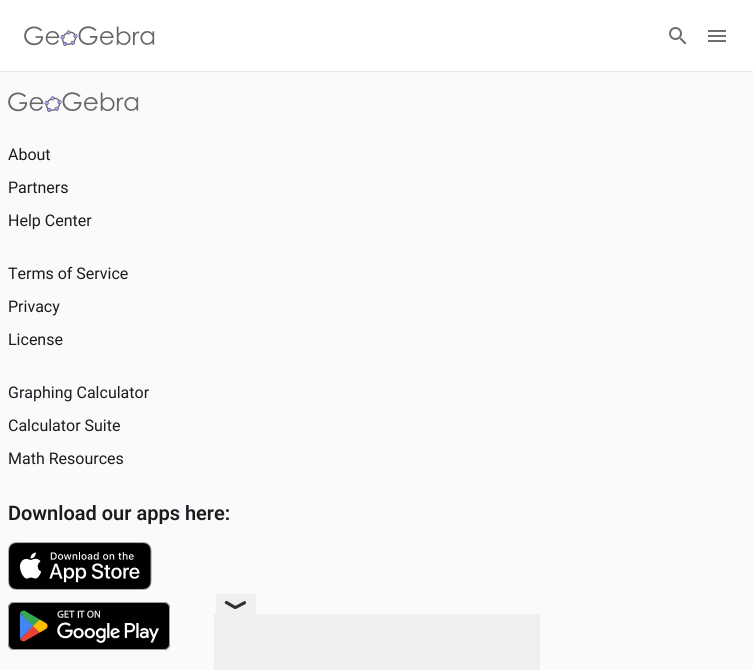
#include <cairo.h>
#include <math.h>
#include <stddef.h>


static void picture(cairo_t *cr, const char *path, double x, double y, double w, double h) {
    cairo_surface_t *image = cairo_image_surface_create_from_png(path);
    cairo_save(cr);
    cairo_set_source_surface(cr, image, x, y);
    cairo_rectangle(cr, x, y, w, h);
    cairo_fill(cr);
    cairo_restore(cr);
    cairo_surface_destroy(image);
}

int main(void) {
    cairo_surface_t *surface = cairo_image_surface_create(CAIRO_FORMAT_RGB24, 753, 670);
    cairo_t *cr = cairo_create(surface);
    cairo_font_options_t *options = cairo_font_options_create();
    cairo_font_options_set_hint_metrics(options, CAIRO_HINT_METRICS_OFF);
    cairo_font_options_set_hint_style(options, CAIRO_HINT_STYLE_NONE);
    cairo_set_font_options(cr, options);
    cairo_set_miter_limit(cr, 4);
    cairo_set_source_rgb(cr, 0.98, 0.98, 0.988);
    cairo_paint(cr);
    cairo_set_source_rgb(cr, 1, 1, 1);
    cairo_rectangle(cr, 0, 0, 753, 71);
    cairo_fill(cr);
    cairo_set_source_rgb(cr, 0.902, 0.902, 0.922);
    cairo_rectangle(cr, 0, 71, 753, 1);
    cairo_fill(cr);
    picture(cr, "img1.png", 24, 26, 131, 20);
    picture(cr, "img2.png", 669, 27, 18, 18);
    picture(cr, "img3.png", 708, 30, 18, 12);
    picture(cr, "img4.png", 8, 92, 131, 20);
    cairo_select_font_face(cr, "Roboto", CAIRO_FONT_SLANT_NORMAL, CAIRO_FONT_WEIGHT_NORMAL);
    cairo_set_font_size(cr, 16);
    cairo_set_source_rgb(cr, 0.11, 0.11, 0.122);
    cairo_move_to(cr, 8, 160);
    cairo_show_text(cr, "About");
    cairo_move_to(cr, 8, 193);
    cairo_show_text(cr, "Partners");
    cairo_move_to(cr, 8, 226);
    cairo_show_text(cr, "Help Center");
    cairo_move_to(cr, 8, 279);
    cairo_show_text(cr, "Terms of Service");
    cairo_move_to(cr, 8, 312);
    cairo_show_text(cr, "Privacy");
    cairo_move_to(cr, 8, 345);
    cairo_show_text(cr, "License");
    cairo_move_to(cr, 8, 398);
    cairo_show_text(cr, "Graphing Calculator");
    cairo_move_to(cr, 8, 431);
    cairo_show_text(cr, "Calculator Suite");
    cairo_move_to(cr, 8, 464);
    cairo_show_text(cr, "Math Resources");
    cairo_select_font_face(cr, "Roboto SemiBold", CAIRO_FONT_SLANT_NORMAL, CAIRO_FONT_WEIGHT_NORMAL);
    cairo_set_font_size(cr, 20);
    cairo_move_to(cr, 8, 520);
    cairo_show_text(cr, "Download our apps here:");
    picture(cr, "img5.png", 8, 542, 144, 48);
    picture(cr, "img6.png", 8, 602, 162, 48);
    cairo_set_source_rgb(cr, 0.937, 0.937, 0.937);
    cairo_new_path(cr);
    cairo_move_to(cr, 218, 594);
    cairo_line_to(cr, 254, 594);
    cairo_curve_to(cr, 255, 594, 256, 595, 256, 596);
    cairo_line_to(cr, 256, 614);
    cairo_line_to(cr, 216, 614);
    cairo_line_to(cr, 216, 596);
    cairo_curve_to(cr, 216, 595, 217, 594, 218, 594);
    cairo_close_path(cr);
    cairo_fill(cr);
    cairo_set_source_rgb(cr, 0.192, 0.192, 0.192);
    cairo_new_path(cr);
    cairo_move_to(cr, 227, 601);
    cairo_line_to(cr, 236.5, 606.5);
    cairo_curve_to(cr, 237, 608, 235.5, 609.5, 234.5, 609);
    cairo_line_to(cr, 225, 603.5);
    cairo_curve_to(cr, 224, 602, 226, 600.5, 227, 601);
    cairo_close_path(cr);
    cairo_fill(cr);
    cairo_new_path(cr);
    cairo_move_to(cr, 235, 606);
    cairo_line_to(cr, 244.5, 601);
    cairo_curve_to(cr, 246, 601, 246.5, 603, 245.5, 604);
    cairo_line_to(cr, 236, 609);
    cairo_curve_to(cr, 234.5, 609, 234, 607, 235, 606);
    cairo_close_path(cr);
    cairo_fill(cr);
    cairo_set_source_rgb(cr, 0.937, 0.937, 0.937);
    cairo_rectangle(cr, 214, 614, 326, 56);
    cairo_fill(cr);
    cairo_surface_write_to_png(surface, "page.png");
    cairo_font_options_destroy(options);
    cairo_destroy(cr);
    cairo_surface_destroy(surface);
    return 0;
}
